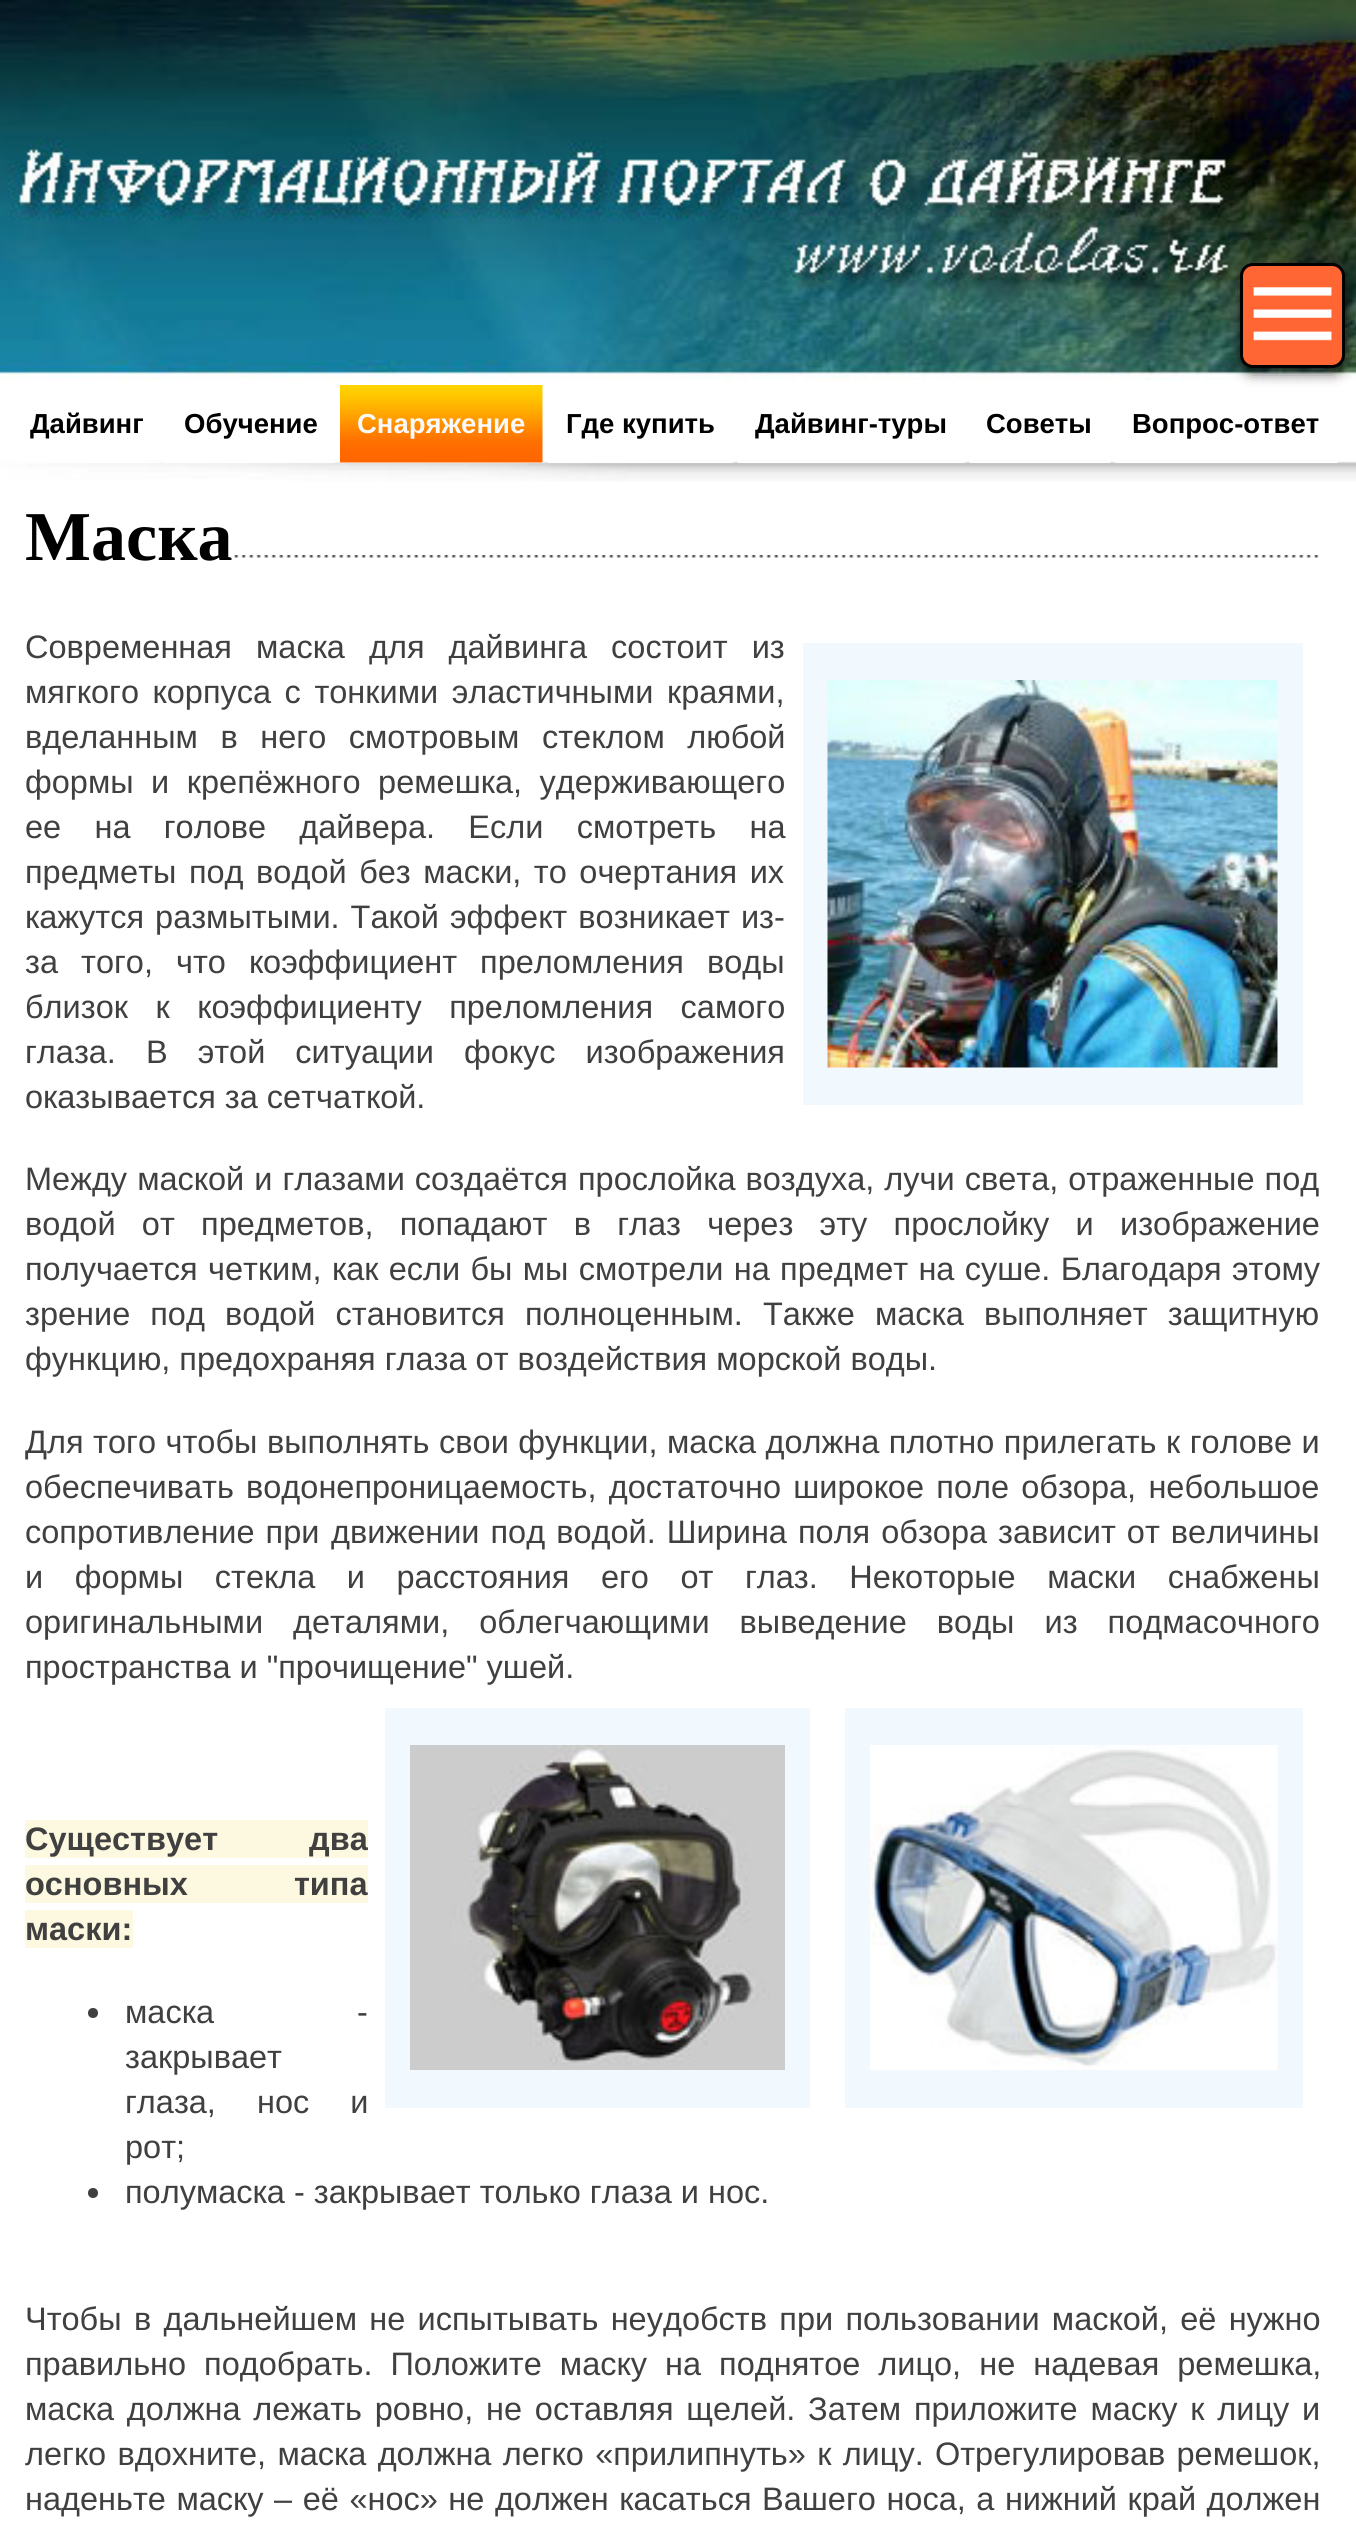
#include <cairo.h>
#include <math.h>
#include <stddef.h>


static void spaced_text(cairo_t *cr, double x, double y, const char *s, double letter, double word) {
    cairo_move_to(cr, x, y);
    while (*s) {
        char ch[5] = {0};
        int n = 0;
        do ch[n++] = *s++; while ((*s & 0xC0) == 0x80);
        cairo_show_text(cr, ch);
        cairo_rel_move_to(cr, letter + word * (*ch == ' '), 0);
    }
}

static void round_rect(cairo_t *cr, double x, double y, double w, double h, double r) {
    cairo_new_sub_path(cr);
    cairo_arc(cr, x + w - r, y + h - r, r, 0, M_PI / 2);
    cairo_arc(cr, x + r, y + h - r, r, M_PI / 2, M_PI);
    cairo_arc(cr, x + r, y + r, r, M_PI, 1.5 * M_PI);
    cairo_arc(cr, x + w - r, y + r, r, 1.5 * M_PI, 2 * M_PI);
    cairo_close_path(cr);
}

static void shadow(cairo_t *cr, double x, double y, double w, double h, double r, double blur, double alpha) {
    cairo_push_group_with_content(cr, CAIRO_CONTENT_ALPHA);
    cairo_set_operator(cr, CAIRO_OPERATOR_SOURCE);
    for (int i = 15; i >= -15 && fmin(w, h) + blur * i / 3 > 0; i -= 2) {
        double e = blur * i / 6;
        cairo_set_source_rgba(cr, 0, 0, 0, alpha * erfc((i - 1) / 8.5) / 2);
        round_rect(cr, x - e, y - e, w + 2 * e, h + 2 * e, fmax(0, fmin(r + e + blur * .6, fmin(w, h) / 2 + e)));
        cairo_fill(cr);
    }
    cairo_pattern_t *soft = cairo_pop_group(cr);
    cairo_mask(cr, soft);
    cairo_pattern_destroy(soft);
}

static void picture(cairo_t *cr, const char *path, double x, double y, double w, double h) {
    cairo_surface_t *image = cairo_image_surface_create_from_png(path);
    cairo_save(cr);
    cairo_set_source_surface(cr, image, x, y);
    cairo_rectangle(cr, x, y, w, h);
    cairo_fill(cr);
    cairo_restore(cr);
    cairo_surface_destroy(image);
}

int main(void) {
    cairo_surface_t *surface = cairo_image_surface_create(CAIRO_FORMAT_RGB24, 1356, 2522);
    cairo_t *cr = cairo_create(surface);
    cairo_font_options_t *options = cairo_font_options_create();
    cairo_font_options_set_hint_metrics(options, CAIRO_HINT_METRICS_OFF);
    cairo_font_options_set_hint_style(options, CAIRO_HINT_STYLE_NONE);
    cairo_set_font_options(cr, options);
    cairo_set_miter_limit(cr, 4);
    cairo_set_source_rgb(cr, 1, 1, 1);
    cairo_paint(cr);
    picture(cr, "img2.png", 0, 0, 1356, 482);
    cairo_set_source_rgb(cr, 0, 0, 0);
    shadow(cr, 1243, 270, 100, 100, 10, 7.5, 1);
    cairo_set_source_rgb(cr, 1, 0.4, 0.2);
    round_rect(cr, 1241.5, 264.5, 102, 102, 11.5);
    cairo_fill_preserve(cr);
    cairo_set_source_rgb(cr, 0, 0, 0);
    cairo_set_line_width(cr, 3);
    cairo_stroke(cr);
    picture(cr, "img1.png", 1253, 287, 79, 54);
    cairo_set_source_rgb(cr, 1, 1, 1);
    cairo_rectangle(cr, 46, 462, 114, 1);
    cairo_fill(cr);
    cairo_select_font_face(cr, "Liberation Sans", CAIRO_FONT_SLANT_NORMAL, CAIRO_FONT_WEIGHT_BOLD);
    cairo_set_font_size(cr, 27.5);
    cairo_set_source_rgb(cr, 0, 0, 0);
    cairo_move_to(cr, 30, 433);
    cairo_show_text(cr, "Дайвинг");
    cairo_set_source_rgb(cr, 1, 1, 1);
    cairo_rectangle(cr, 165, 461, 170, 2);
    cairo_fill(cr);
    cairo_set_source_rgb(cr, 0, 0, 0);
    cairo_move_to(cr, 184, 433);
    cairo_show_text(cr, "Обучение");
    cairo_set_source_rgb(cr, 1, 1, 1);
    cairo_rectangle(cr, 340, 461, 203, 2);
    cairo_fill(cr);
    picture(cr, "img3.png", 340, 385, 203, 78);
    cairo_set_source_rgb(cr, 0.973, 0.973, 0.973);
    cairo_move_to(cr, 357, 433);
    cairo_show_text(cr, "Снаряжение");
    cairo_set_source_rgb(cr, 1, 1, 1);
    cairo_rectangle(cr, 548, 461, 185, 2);
    cairo_fill(cr);
    cairo_set_source_rgb(cr, 0, 0, 0);
    cairo_move_to(cr, 566, 433);
    cairo_show_text(cr, "Где купить");
    cairo_set_source_rgb(cr, 1, 1, 1);
    cairo_rectangle(cr, 738, 461, 227, 2);
    cairo_fill(cr);
    cairo_set_source_rgb(cr, 0, 0, 0);
    cairo_move_to(cr, 755, 433);
    cairo_show_text(cr, "Дайвинг-туры");
    cairo_set_source_rgb(cr, 1, 1, 1);
    cairo_rectangle(cr, 970, 461, 140, 2);
    cairo_fill(cr);
    cairo_set_source_rgb(cr, 0, 0, 0);
    cairo_move_to(cr, 986, 433);
    cairo_show_text(cr, "Советы");
    cairo_set_source_rgb(cr, 1, 1, 1);
    cairo_rectangle(cr, 1115, 461, 223, 2);
    cairo_fill(cr);
    cairo_set_source_rgb(cr, 0, 0, 0);
    cairo_move_to(cr, 1132, 433);
    cairo_show_text(cr, "Вопрос-ответ");
    picture(cr, "img4.png", 233, 555, 1086, 3);
    cairo_select_font_face(cr, "Liberation Serif", CAIRO_FONT_SLANT_NORMAL, CAIRO_FONT_WEIGHT_BOLD);
    cairo_set_font_size(cr, 70);
    cairo_move_to(cr, 25, 560);
    cairo_show_text(cr, "Маска");
    cairo_select_font_face(cr, "Liberation Sans", CAIRO_FONT_SLANT_NORMAL, CAIRO_FONT_WEIGHT_NORMAL);
    cairo_set_font_size(cr, 32.5);
    cairo_set_source_rgb(cr, 0.251, 0.251, 0.251);
    spaced_text(cr, 25, 658, "Современная маска для дайвинга состоит из", 0, 15);
    spaced_text(cr, 25, 703, "мягкого корпуса с тонкими эластичными", 0, 4.5);
    cairo_move_to(cr, 667, 703);
    cairo_show_text(cr, "краями,");
    spaced_text(cr, 25, 748, "вделанным в него смотровым стеклом любой", 0, 13.5);
    spaced_text(cr, 25, 793, "формы и крепёжного ремешка, удерживающего", 0, 8.5);
    spaced_text(cr, 25, 838, "ее на голове дайвера. Если смотреть на", 0, 24.25);
    spaced_text(cr, 25, 883, "предметы под водой без маски, то очертания их", 0, 3.5);
    spaced_text(cr, 25, 928, "кажутся размытыми. Такой эффект возникает из-", 0, 2);
    spaced_text(cr, 25, 973, "за того, что коэффициент преломления воды", 0, 14);
    spaced_text(cr, 25, 1018, "близок к коэффициенту преломления самого", 0, 18.5);
    spaced_text(cr, 25, 1063, "глаза. В этой ситуации фокус изображения", 0, 21);
    cairo_move_to(cr, 25, 1108);
    cairo_show_text(cr, "оказывается за сетчаткой.");
    cairo_set_source_rgb(cr, 0.945, 0.976, 1);
    cairo_rectangle(cr, 803, 643, 500, 462);
    cairo_fill(cr);
    picture(cr, "img5.png", 827, 680, 451, 388);
    cairo_set_source_rgb(cr, 0.251, 0.251, 0.251);
    spaced_text(cr, 25, 1190, "Между маской и глазами создаётся прослойка воздуха, лучи света, отраженные под", 0, 1);
    spaced_text(cr, 25, 1235, "водой от предметов, попадают в глаз через эту прослойку и изображение", 0, 17.25);
    cairo_move_to(cr, 25, 1280);
    cairo_show_text(cr, "получается");
    spaced_text(cr, 208, 1280, "четким, как если бы мы смотрели на предмет на суше. Благодаря этому", 0, 1.25);
    spaced_text(cr, 25, 1325, "зрение под водой становится полноценным. Также маска выполняет защитную", 0, 11);
    cairo_move_to(cr, 25, 1370);
    cairo_show_text(cr, "функцию, предохраняя глаза от воздействия морской воды.");
    spaced_text(cr, 25, 1453, "Для того чтобы выполнять свои функции, маска должна плотно прилегать к голове и", 0, 0.5);
    cairo_move_to(cr, 25, 1498);
    cairo_show_text(cr, "обеспечивать");
    spaced_text(cr, 246, 1498, "водонепроницаемость, достаточно широкое поле обзора, небольшое", 0, 3.25);
    spaced_text(cr, 25, 1543, "сопротивление при", 0, 2);
    spaced_text(cr, 331, 1543, "движении под водой. Ширина поля обзора зависит от величины", 0, 2);
    spaced_text(cr, 25, 1588, "и формы стекла и расстояния его от глаз. Некоторые маски снабжены", 0, 22.5);
    spaced_text(cr, 25, 1633, "оригинальными деталями, облегчающими выведение воды из подмасочного", 0, 21);
    cairo_move_to(cr, 25, 1678);
    cairo_show_text(cr, "пространства и \"прочищение\" ушей.");
    cairo_set_source_rgb(cr, 0.992, 0.969, 0.878);
    cairo_rectangle(cr, 25, 1820, 343, 38);
    cairo_fill(cr);
    cairo_select_font_face(cr, "Liberation Sans", CAIRO_FONT_SLANT_NORMAL, CAIRO_FONT_WEIGHT_BOLD);
    cairo_set_source_rgb(cr, 0.251, 0.251, 0.251);
    spaced_text(cr, 25, 1850, "Существует два", 0, 82);
    cairo_set_source_rgb(cr, 0.992, 0.969, 0.878);
    cairo_rectangle(cr, 25, 1865, 343, 38);
    cairo_fill(cr);
    cairo_set_source_rgb(cr, 0.251, 0.251, 0.251);
    spaced_text(cr, 25, 1895, "основных типа", 0, 97);
    cairo_set_source_rgb(cr, 0.992, 0.969, 0.878);
    cairo_rectangle(cr, 25, 1910, 108, 38);
    cairo_fill(cr);
    cairo_set_source_rgb(cr, 0.251, 0.251, 0.251);
    cairo_move_to(cr, 25, 1940);
    cairo_show_text(cr, "маски:");
    cairo_set_source_rgb(cr, 0.945, 0.976, 1);
    cairo_rectangle(cr, 385, 1708, 425, 400);
    cairo_fill(cr);
    picture(cr, "img6.png", 410, 1745, 375, 325);
    cairo_rectangle(cr, 845, 1708, 458, 400);
    cairo_fill(cr);
    picture(cr, "img7.png", 870, 1745, 408, 325);
    cairo_set_source_rgb(cr, 0.251, 0.251, 0.251);
    cairo_arc(cr, 93, 2013, 5, 0, 2 * M_PI);
    cairo_fill(cr);
    cairo_select_font_face(cr, "Liberation Sans", CAIRO_FONT_SLANT_NORMAL, CAIRO_FONT_WEIGHT_NORMAL);
    spaced_text(cr, 125, 2023, "маска -", 0, 134);
    cairo_move_to(cr, 125, 2068);
    cairo_show_text(cr, "закрывает");
    spaced_text(cr, 125, 2113, "глаза, нос и", 0, 32);
    cairo_move_to(cr, 125, 2158);
    cairo_show_text(cr, "рот;");
    cairo_new_path(cr);
    cairo_arc(cr, 93, 2193, 5, 0, 2 * M_PI);
    cairo_fill(cr);
    cairo_move_to(cr, 125, 2203);
    cairo_show_text(cr, "полумаска - закрывает только глаза и нос.");
    spaced_text(cr, 25, 2330, "Чтобы в дальнейшем не испытывать неудобств при пользовании маской, её нужно", 0, 3.25);
    spaced_text(cr, 25, 2375, "правильно подобрать. Положите маску на поднятое лицо, не надевая ремешка,", 0, 9);
    spaced_text(cr, 25, 2420, "маска должна лежать ровно, не оставляя щелей. Затем приложите маску к лицу и", 0, 3.75);
    spaced_text(cr, 25, 2465, "легко вдохните, маска должна легко «прилипнуть» к лицу. Отрегулировав ремешок,", 0, 2.25);
    spaced_text(cr, 25, 2510, "наденьте маску – её «нос» не должен касаться Вашего носа, а нижний край должен", 0, 1.5);
    cairo_surface_write_to_png(surface, "page.png");
    cairo_font_options_destroy(options);
    cairo_destroy(cr);
    cairo_surface_destroy(surface);
    return 0;
}
